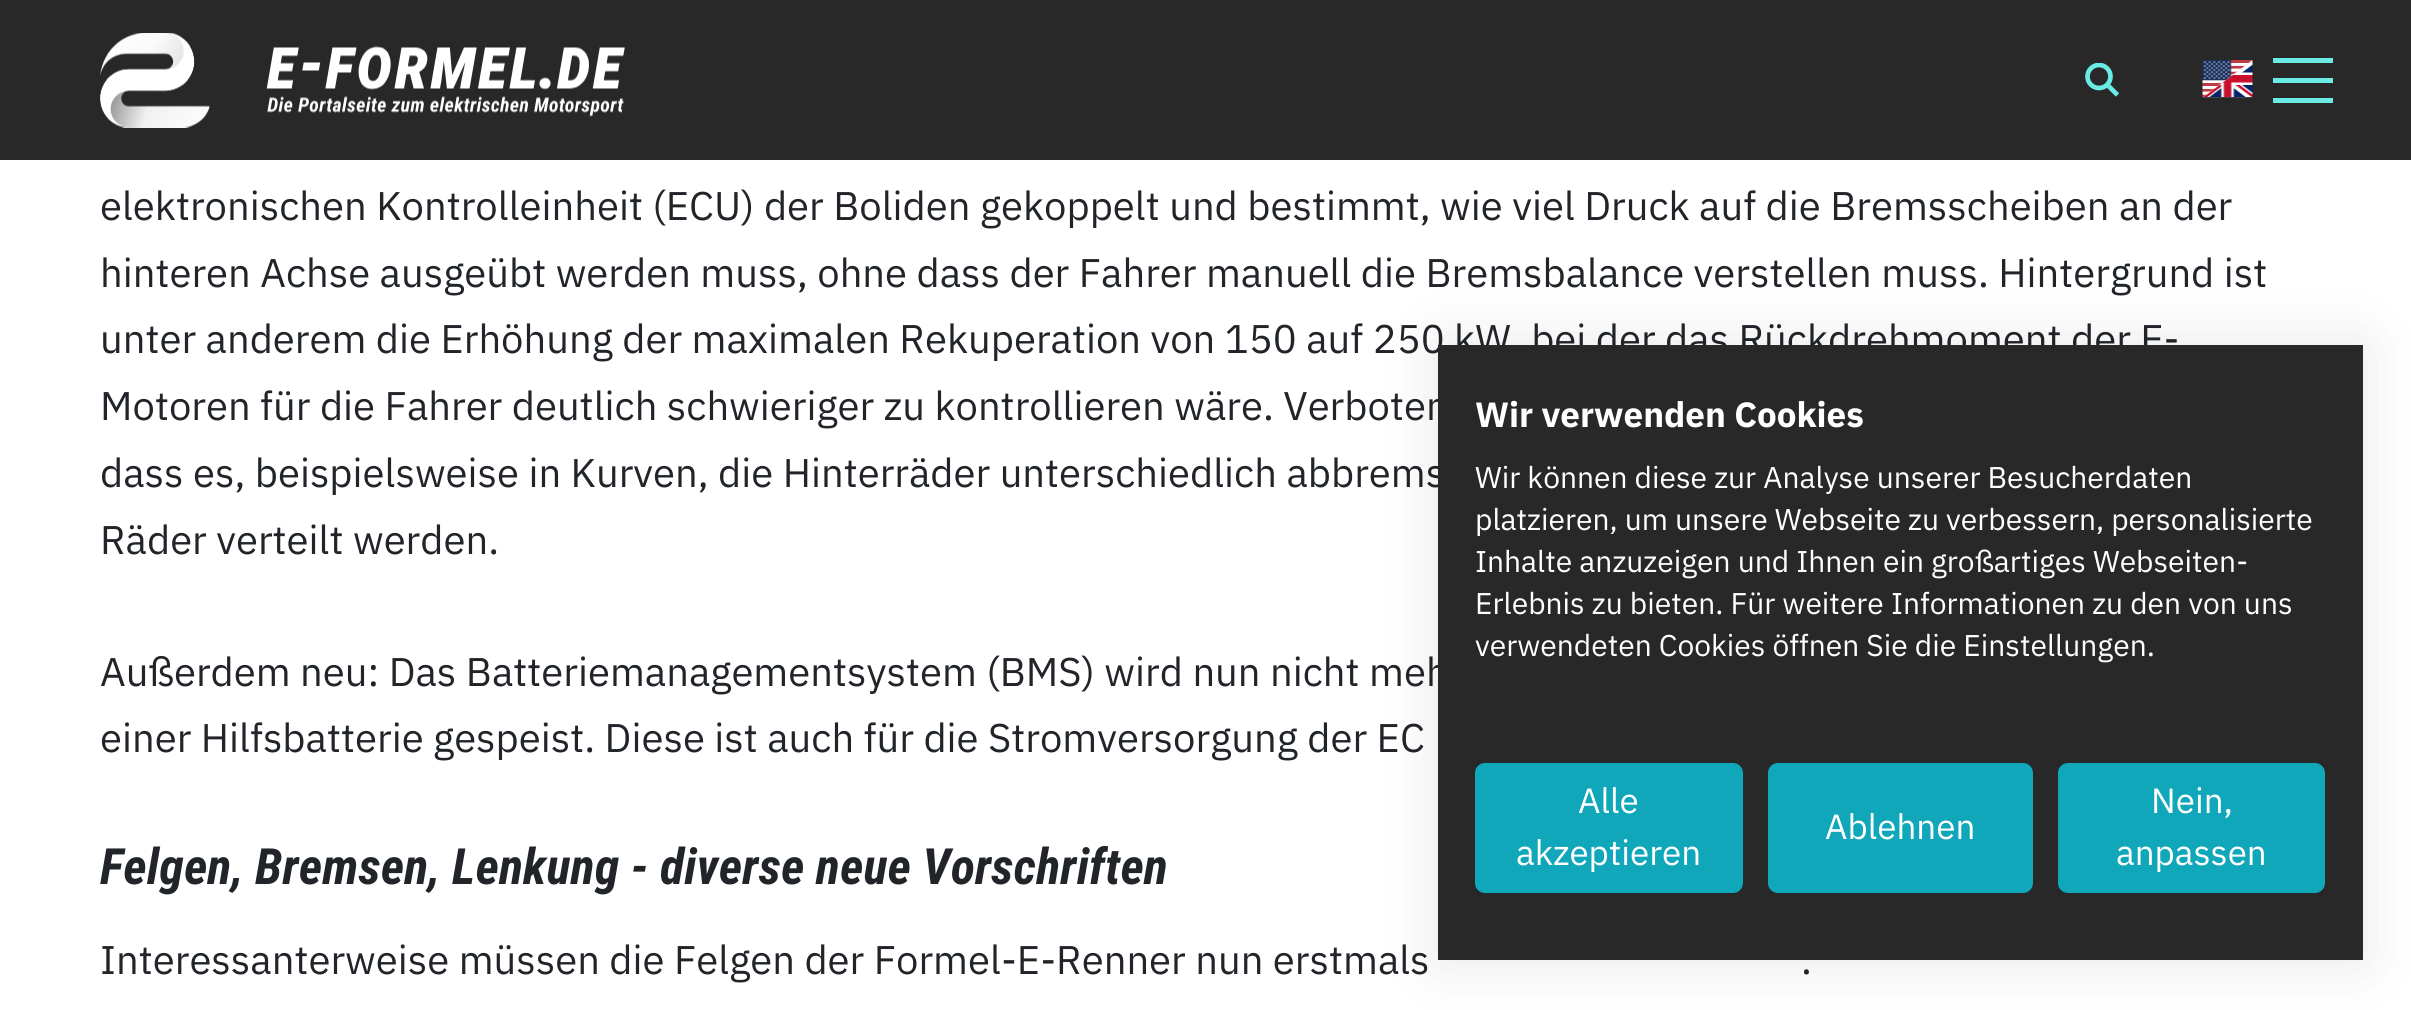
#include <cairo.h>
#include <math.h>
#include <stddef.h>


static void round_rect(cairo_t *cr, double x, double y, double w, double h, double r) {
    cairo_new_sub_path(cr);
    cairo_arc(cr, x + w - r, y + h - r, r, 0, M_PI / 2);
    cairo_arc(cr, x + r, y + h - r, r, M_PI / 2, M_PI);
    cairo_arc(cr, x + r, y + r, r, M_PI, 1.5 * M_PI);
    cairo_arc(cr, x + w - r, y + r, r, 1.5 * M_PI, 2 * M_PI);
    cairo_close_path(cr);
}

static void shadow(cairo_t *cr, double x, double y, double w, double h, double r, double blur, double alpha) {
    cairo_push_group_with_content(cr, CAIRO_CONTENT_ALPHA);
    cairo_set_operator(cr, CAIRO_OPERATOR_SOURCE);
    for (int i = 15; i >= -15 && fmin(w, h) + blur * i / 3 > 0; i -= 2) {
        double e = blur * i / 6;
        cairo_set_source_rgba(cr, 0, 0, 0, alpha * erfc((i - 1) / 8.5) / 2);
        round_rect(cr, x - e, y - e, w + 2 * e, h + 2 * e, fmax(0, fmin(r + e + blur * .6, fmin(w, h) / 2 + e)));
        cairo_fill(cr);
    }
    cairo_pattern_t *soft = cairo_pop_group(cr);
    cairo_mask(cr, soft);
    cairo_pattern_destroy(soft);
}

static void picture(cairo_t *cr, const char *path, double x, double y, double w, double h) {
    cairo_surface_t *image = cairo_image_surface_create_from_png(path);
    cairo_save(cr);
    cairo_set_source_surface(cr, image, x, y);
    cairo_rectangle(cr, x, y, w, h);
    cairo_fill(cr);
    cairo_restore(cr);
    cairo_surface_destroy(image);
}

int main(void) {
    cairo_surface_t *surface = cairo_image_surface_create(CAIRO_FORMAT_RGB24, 2411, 1010);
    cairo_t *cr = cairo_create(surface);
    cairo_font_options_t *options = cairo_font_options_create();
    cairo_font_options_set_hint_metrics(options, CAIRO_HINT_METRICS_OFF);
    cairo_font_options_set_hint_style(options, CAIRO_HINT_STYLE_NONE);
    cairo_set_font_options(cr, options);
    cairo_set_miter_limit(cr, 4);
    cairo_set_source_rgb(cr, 1, 1, 1);
    cairo_paint(cr);
    cairo_set_source_rgb(cr, 0.157, 0.157, 0.157);
    cairo_rectangle(cr, 0, 0, 2411, 160);
    cairo_fill(cr);
    picture(cr, "img1.png", 100, 33, 525, 95);
    cairo_save(cr);
    cairo_rectangle(cr, 2085, 63, 35, 35);
    cairo_clip(cr);
    cairo_arc(cr, 2099, 76.5, 11.5, 0, 2 * M_PI);
    cairo_set_source_rgb(cr, 0.416, 0.918, 0.898);
    cairo_set_line_width(cr, 4.7);
    cairo_stroke(cr);
    cairo_restore(cr);
    cairo_new_path(cr);
    cairo_move_to(cr, 2108.5, 86);
    cairo_line_to(cr, 2117.5, 95);
    cairo_set_source_rgb(cr, 0.416, 0.918, 0.898);
    cairo_set_line_width(cr, 4.7);
    cairo_stroke(cr);
    picture(cr, "img2.png", 2202, 60, 51, 38);
    cairo_rectangle(cr, 2273, 58, 60, 5);
    cairo_fill(cr);
    cairo_rectangle(cr, 2273, 78, 60, 5);
    cairo_fill(cr);
    cairo_rectangle(cr, 2273, 98, 60, 5);
    cairo_fill(cr);
    cairo_select_font_face(cr, "IBM Plex Sans", CAIRO_FONT_SLANT_NORMAL, CAIRO_FONT_WEIGHT_NORMAL);
    cairo_set_font_size(cr, 40);
    cairo_set_source_rgb(cr, 0.129, 0.145, 0.161);
    cairo_move_to(cr, 100, 220);
    cairo_show_text(cr, "elektronischen Kontrolleinheit (ECU) der Boliden gekoppelt und bestimmt, wie viel Druck auf die Bremsscheiben an der");
    cairo_move_to(cr, 100, 287);
    cairo_show_text(cr, "hinteren Achse ausgeübt werden muss, ohne dass der Fahrer manuell die Bremsbalance verstellen muss. Hintergrund ist");
    cairo_move_to(cr, 100, 353);
    cairo_show_text(cr, "unter anderem die Erhöhung der maximalen Rekuperation von 150 auf 250 kW, bei der das Rückdrehmoment der E-");
    cairo_move_to(cr, 100, 420);
    cairo_show_text(cr, "Motoren für die Fahrer deutlich schwieriger zu kontrollieren wäre. Verboten");
    cairo_move_to(cr, 100, 487);
    cairo_show_text(cr, "dass es, beispielsweise in Kurven, die Hinterräder unterschiedlich abbrems");
    cairo_move_to(cr, 100, 554);
    cairo_show_text(cr, "Räder verteilt werden.");
    cairo_move_to(cr, 100, 686);
    cairo_show_text(cr, "Außerdem neu: Das Batteriemanagementsystem (BMS) wird nun nicht meh");
    cairo_move_to(cr, 100, 752);
    cairo_show_text(cr, "einer Hilfsbatterie gespeist. Diese ist auch für die Stromversorgung der EC");
    cairo_select_font_face(cr, "Roboto Condensed", CAIRO_FONT_SLANT_ITALIC, CAIRO_FONT_WEIGHT_BOLD);
    cairo_set_font_size(cr, 50);
    cairo_move_to(cr, 100, 884);
    cairo_show_text(cr, "Felgen, Bremsen, Lenkung - diverse neue Vorschriften");
    cairo_select_font_face(cr, "IBM Plex Sans", CAIRO_FONT_SLANT_NORMAL, CAIRO_FONT_WEIGHT_NORMAL);
    cairo_set_font_size(cr, 40);
    cairo_move_to(cr, 100, 974);
    cairo_show_text(cr, "Interessanterweise müssen die Felgen der Formel-E-Renner nun erstmals");
    cairo_move_to(cr, 1801, 974);
    cairo_show_text(cr, ".");
    cairo_set_source_rgb(cr, 0, 0, 0);
    shadow(cr, 1438, 345, 925, 615, 0, 30, 0.1);
    cairo_set_source_rgb(cr, 0.157, 0.157, 0.157);
    cairo_rectangle(cr, 1438, 345, 925, 615);
    cairo_fill(cr);
    cairo_select_font_face(cr, "IBM Plex Sans", CAIRO_FONT_SLANT_NORMAL, CAIRO_FONT_WEIGHT_BOLD);
    cairo_set_font_size(cr, 35);
    cairo_set_source_rgb(cr, 1, 1, 1);
    cairo_move_to(cr, 1475, 427);
    cairo_show_text(cr, "Wir verwenden Cookies");
    cairo_select_font_face(cr, "IBM Plex Sans", CAIRO_FONT_SLANT_NORMAL, CAIRO_FONT_WEIGHT_NORMAL);
    cairo_set_font_size(cr, 30);
    cairo_move_to(cr, 1475, 488);
    cairo_show_text(cr, "Wir können diese zur Analyse unserer Besucherdaten");
    cairo_move_to(cr, 1475, 530);
    cairo_show_text(cr, "platzieren, um unsere Webseite zu verbessern, personalisierte");
    cairo_move_to(cr, 1475, 572);
    cairo_show_text(cr, "Inhalte anzuzeigen und Ihnen ein großartiges Webseiten-");
    cairo_move_to(cr, 1475, 614);
    cairo_show_text(cr, "Erlebnis zu bieten. Für weitere Informationen zu den von uns");
    cairo_move_to(cr, 1475, 656);
    cairo_show_text(cr, "verwendeten Cookies öffnen Sie die Einstellungen.");
    cairo_set_source_rgb(cr, 0.067, 0.655, 0.733);
    round_rect(cr, 1476.5, 764.5, 265, 127, 8.5);
    cairo_fill_preserve(cr);
    cairo_set_line_width(cr, 3);
    cairo_stroke(cr);
    cairo_set_font_size(cr, 35);
    cairo_set_source_rgb(cr, 1, 1, 1);
    cairo_move_to(cr, 1578, 813);
    cairo_show_text(cr, "Alle");
    cairo_move_to(cr, 1516, 865);
    cairo_show_text(cr, "akzeptieren");
    cairo_set_source_rgb(cr, 0.067, 0.655, 0.733);
    round_rect(cr, 1769.5, 764.5, 262, 127, 8.5);
    cairo_fill_preserve(cr);
    cairo_stroke(cr);
    cairo_set_source_rgb(cr, 1, 1, 1);
    cairo_move_to(cr, 1825, 839);
    cairo_show_text(cr, "Ablehnen");
    cairo_set_source_rgb(cr, 0.067, 0.655, 0.733);
    round_rect(cr, 2059.5, 764.5, 264, 127, 8.5);
    cairo_fill_preserve(cr);
    cairo_stroke(cr);
    cairo_set_source_rgb(cr, 1, 1, 1);
    cairo_move_to(cr, 2151, 813);
    cairo_show_text(cr, "Nein,");
    cairo_move_to(cr, 2116, 865);
    cairo_show_text(cr, "anpassen");
    cairo_surface_write_to_png(surface, "page.png");
    cairo_font_options_destroy(options);
    cairo_destroy(cr);
    cairo_surface_destroy(surface);
    return 0;
}
